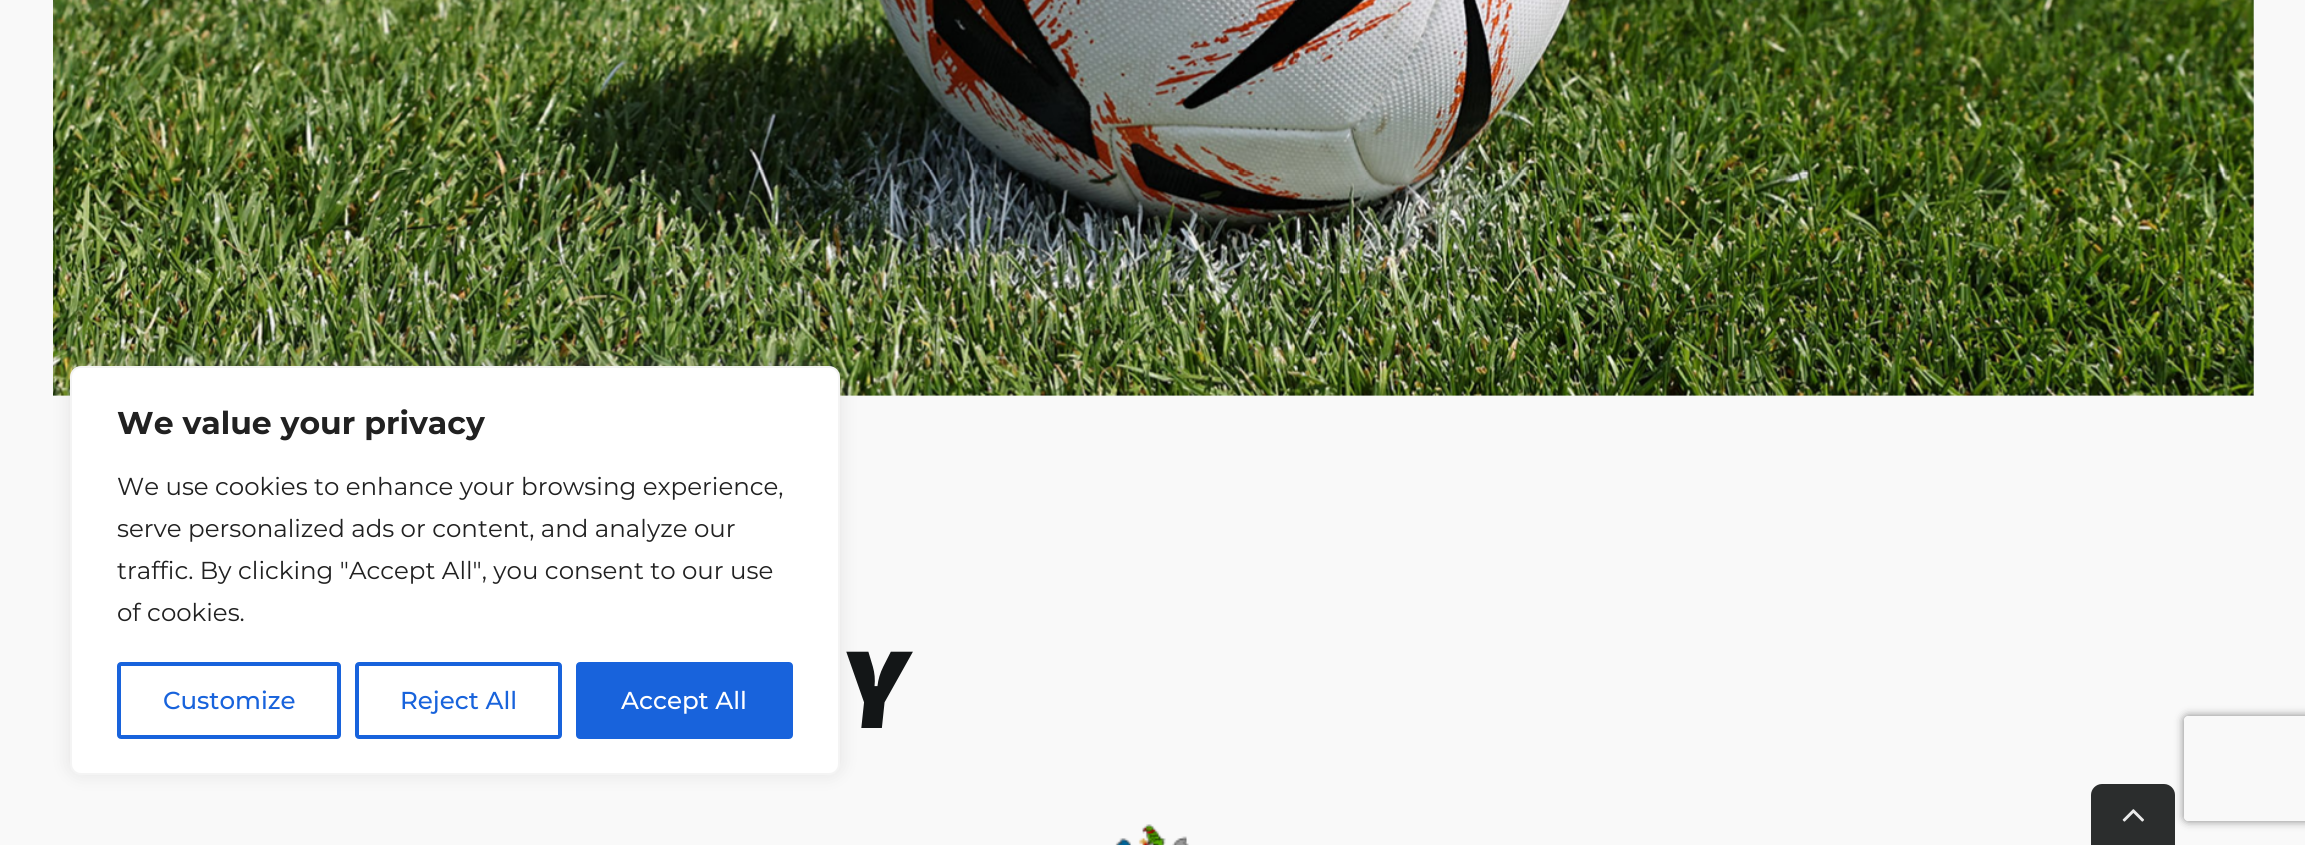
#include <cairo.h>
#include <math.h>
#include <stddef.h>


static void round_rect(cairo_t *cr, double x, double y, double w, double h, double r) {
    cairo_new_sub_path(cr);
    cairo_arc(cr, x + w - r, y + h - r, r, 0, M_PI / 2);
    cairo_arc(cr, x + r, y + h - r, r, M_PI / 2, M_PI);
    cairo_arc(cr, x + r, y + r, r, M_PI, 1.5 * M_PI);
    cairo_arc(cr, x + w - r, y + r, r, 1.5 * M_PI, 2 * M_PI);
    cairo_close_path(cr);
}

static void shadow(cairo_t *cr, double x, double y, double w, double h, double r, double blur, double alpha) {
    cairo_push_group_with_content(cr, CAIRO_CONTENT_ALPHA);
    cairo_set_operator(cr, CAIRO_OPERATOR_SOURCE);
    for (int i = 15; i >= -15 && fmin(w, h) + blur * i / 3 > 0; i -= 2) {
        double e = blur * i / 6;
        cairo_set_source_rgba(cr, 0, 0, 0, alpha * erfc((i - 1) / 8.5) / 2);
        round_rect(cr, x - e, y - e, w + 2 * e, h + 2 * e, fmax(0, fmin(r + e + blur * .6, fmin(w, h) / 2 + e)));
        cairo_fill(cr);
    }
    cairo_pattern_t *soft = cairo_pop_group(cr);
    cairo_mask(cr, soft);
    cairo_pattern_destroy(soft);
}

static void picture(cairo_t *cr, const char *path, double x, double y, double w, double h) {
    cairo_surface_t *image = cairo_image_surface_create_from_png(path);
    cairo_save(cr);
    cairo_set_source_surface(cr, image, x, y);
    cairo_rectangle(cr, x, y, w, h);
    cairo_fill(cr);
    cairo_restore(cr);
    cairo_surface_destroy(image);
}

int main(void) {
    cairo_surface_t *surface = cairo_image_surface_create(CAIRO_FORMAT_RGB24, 2305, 845);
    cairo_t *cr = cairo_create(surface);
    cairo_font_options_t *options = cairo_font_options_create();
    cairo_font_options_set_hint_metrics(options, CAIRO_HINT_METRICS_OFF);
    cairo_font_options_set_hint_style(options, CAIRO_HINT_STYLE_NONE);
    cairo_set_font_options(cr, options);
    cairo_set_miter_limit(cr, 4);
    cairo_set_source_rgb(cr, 0.973, 0.973, 0.973);
    cairo_paint(cr);
    picture(cr, "img1.png", 53, 0, 2201, 396);
    cairo_set_source_rgb(cr, 0.675, 0.671, 0.671);
    shadow(cr, 70, 364, 770, 410, 11, 9, 0.3);
    cairo_set_source_rgb(cr, 1, 1, 1);
    round_rect(cr, 71, 367, 768, 407, 10);
    cairo_fill_preserve(cr);
    cairo_set_source_rgb(cr, 0.957, 0.957, 0.957);
    cairo_stroke(cr);
    cairo_select_font_face(cr, "Montserrat", CAIRO_FONT_SLANT_NORMAL, CAIRO_FONT_WEIGHT_BOLD);
    cairo_set_font_size(cr, 31.5);
    cairo_set_source_rgb(cr, 0.129, 0.129, 0.129);
    cairo_move_to(cr, 117, 434);
    cairo_show_text(cr, "We value your privacy");
    cairo_select_font_face(cr, "Montserrat", CAIRO_FONT_SLANT_NORMAL, CAIRO_FONT_WEIGHT_NORMAL);
    cairo_set_font_size(cr, 24.5);
    cairo_move_to(cr, 117, 495);
    cairo_show_text(cr, "We use cookies to enhance your browsing experience,");
    cairo_move_to(cr, 117, 537);
    cairo_show_text(cr, "serve personalized ads or content, and analyze our");
    cairo_move_to(cr, 117, 579);
    cairo_show_text(cr, "traffic. By clicking \"Accept All\", you consent to our use");
    cairo_move_to(cr, 117, 621);
    cairo_show_text(cr, "of cookies.");
    round_rect(cr, 119, 664, 220, 73, 2);
    cairo_set_source_rgb(cr, 0.094, 0.388, 0.863);
    cairo_set_line_width(cr, 4);
    cairo_stroke(cr);
    cairo_select_font_face(cr, "Montserrat Medium", CAIRO_FONT_SLANT_NORMAL, CAIRO_FONT_WEIGHT_NORMAL);
    cairo_move_to(cr, 163, 709);
    cairo_show_text(cr, "Customize");
    round_rect(cr, 357, 664, 203, 73, 2);
    cairo_stroke(cr);
    cairo_move_to(cr, 400, 709);
    cairo_show_text(cr, "Reject All");
    round_rect(cr, 578, 664, 213, 73, 2);
    cairo_fill_preserve(cr);
    cairo_stroke(cr);
    cairo_set_source_rgb(cr, 1, 1, 1);
    cairo_move_to(cr, 621, 709);
    cairo_show_text(cr, "Accept All");
    cairo_select_font_face(cr, "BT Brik", CAIRO_FONT_SLANT_NORMAL, CAIRO_FONT_WEIGHT_NORMAL);
    cairo_set_font_size(cr, 112);
    cairo_set_source_rgb(cr, 0.078, 0.086, 0.09);
    cairo_move_to(cr, 839, 728);
    cairo_show_text(cr, "y");
    picture(cr, "img2.png", 1115, 824, 74, 21);
    cairo_save(cr);
    cairo_set_fill_rule(cr, CAIRO_FILL_RULE_EVEN_ODD);
    cairo_new_path(cr);
    cairo_move_to(cr, 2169, 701);
    cairo_line_to(cr, 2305, 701);
    cairo_line_to(cr, 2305, 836);
    cairo_line_to(cr, 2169, 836);
    cairo_close_path(cr);
    cairo_move_to(cr, 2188, 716);
    cairo_line_to(cr, 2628, 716);
    cairo_curve_to(cr, 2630, 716, 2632, 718, 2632, 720);
    cairo_line_to(cr, 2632, 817);
    cairo_curve_to(cr, 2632, 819, 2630, 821, 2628, 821);
    cairo_line_to(cr, 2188, 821);
    cairo_curve_to(cr, 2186, 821, 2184, 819, 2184, 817);
    cairo_line_to(cr, 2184, 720);
    cairo_curve_to(cr, 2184, 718, 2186, 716, 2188, 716);
    cairo_close_path(cr);
    cairo_clip(cr);
    cairo_set_source_rgb(cr, 0.502, 0.502, 0.502);
    shadow(cr, 2184, 716, 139, 105, 4, 4.5, 1);
    cairo_restore(cr);
    cairo_set_source_rgb(cr, 0.169, 0.176, 0.176);
    cairo_new_path(cr);
    cairo_move_to(cr, 2102, 784);
    cairo_line_to(cr, 2164, 784);
    cairo_curve_to(cr, 2170, 784, 2175, 789, 2175, 795);
    cairo_line_to(cr, 2175, 845);
    cairo_line_to(cr, 2091, 845);
    cairo_line_to(cr, 2091, 795);
    cairo_curve_to(cr, 2091, 789, 2096, 784, 2102, 784);
    cairo_close_path(cr);
    cairo_fill(cr);
    picture(cr, "img3.png", 2122, 809, 22, 13);
    cairo_surface_write_to_png(surface, "page.png");
    cairo_font_options_destroy(options);
    cairo_destroy(cr);
    cairo_surface_destroy(surface);
    return 0;
}
